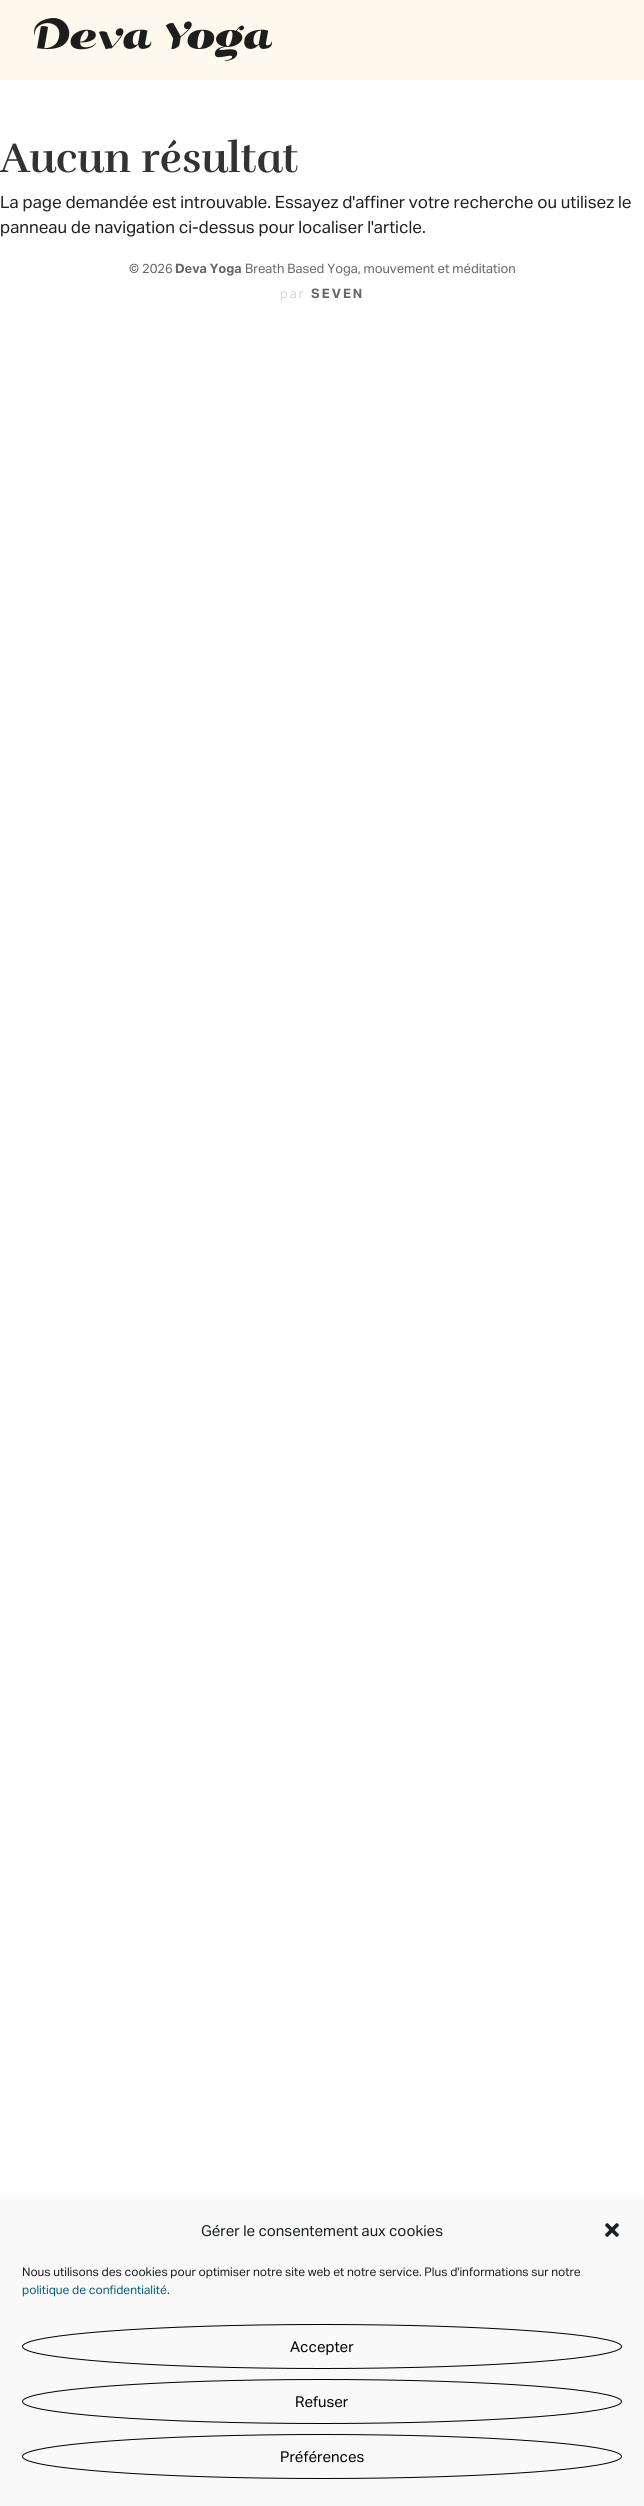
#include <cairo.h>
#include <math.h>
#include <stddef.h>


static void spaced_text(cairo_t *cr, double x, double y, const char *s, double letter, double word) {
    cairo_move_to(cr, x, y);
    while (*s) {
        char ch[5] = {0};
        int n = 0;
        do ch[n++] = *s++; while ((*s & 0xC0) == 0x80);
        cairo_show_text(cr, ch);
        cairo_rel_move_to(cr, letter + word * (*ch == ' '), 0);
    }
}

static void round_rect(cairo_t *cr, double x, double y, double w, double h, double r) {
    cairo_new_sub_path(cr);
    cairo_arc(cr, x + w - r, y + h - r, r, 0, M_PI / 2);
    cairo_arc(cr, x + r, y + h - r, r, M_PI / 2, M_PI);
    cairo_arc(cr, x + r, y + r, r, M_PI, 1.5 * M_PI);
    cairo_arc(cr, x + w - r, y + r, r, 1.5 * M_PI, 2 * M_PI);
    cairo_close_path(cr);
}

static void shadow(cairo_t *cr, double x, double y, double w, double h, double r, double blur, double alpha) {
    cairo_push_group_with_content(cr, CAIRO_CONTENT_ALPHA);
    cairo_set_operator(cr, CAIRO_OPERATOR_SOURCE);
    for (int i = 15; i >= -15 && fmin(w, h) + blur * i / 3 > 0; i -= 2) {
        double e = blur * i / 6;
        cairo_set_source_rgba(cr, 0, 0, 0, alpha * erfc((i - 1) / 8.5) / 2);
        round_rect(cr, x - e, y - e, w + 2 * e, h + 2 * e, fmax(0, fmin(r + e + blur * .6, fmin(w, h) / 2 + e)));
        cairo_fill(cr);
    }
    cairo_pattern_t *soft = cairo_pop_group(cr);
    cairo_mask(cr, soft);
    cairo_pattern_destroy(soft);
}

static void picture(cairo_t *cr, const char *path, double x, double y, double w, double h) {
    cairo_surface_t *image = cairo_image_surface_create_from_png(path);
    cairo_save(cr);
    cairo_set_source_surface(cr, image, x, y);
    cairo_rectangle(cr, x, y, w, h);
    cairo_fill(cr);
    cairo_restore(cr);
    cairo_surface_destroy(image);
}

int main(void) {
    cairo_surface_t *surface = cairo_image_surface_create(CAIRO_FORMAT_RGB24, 644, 2506);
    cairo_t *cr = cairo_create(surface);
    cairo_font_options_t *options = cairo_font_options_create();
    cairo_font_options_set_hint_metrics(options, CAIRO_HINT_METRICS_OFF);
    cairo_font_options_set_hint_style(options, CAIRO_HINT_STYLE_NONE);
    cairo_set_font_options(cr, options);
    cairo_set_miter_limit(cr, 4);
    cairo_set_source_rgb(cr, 1, 1, 1);
    cairo_paint(cr);
    cairo_set_source_rgb(cr, 0.992, 0.976, 0.929);
    cairo_rectangle(cr, 0, 0, 644, 80);
    cairo_fill(cr);
    picture(cr, "img1.png", 34, 18, 238, 44);
    cairo_select_font_face(cr, "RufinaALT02", CAIRO_FONT_SLANT_NORMAL, CAIRO_FONT_WEIGHT_BOLD);
    cairo_set_font_size(cr, 42.5);
    cairo_set_source_rgb(cr, 0.2, 0.2, 0.2);
    cairo_move_to(cr, 0, 172);
    cairo_show_text(cr, "Aucun résultat");
    cairo_select_font_face(cr, "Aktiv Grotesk", CAIRO_FONT_SLANT_NORMAL, CAIRO_FONT_WEIGHT_NORMAL);
    cairo_set_font_size(cr, 17);
    cairo_set_source_rgb(cr, 0.129, 0.129, 0.129);
    cairo_move_to(cr, 0, 208);
    cairo_show_text(cr, "La page demandée est introuvable. Essayez d'affiner votre recherche ou utilisez le");
    cairo_move_to(cr, 0, 233);
    cairo_show_text(cr, "panneau de navigation ci-dessus pour localiser l'article.");
    cairo_set_font_size(cr, 13);
    cairo_set_source_rgb(cr, 0.4, 0.4, 0.4);
    cairo_move_to(cr, 129, 273);
    cairo_show_text(cr, "© 2026");
    cairo_select_font_face(cr, "Aktiv Grotesk", CAIRO_FONT_SLANT_NORMAL, CAIRO_FONT_WEIGHT_BOLD);
    cairo_move_to(cr, 175, 273);
    cairo_show_text(cr, "Deva Yoga");
    cairo_select_font_face(cr, "Aktiv Grotesk", CAIRO_FONT_SLANT_NORMAL, CAIRO_FONT_WEIGHT_NORMAL);
    cairo_move_to(cr, 245, 273);
    cairo_show_text(cr, "Breath Based Yoga, mouvement et méditation");
    cairo_set_source_rgb(cr, 0.831, 0.831, 0.831);
    spaced_text(cr, 280, 298, "par", 2, 0);
    cairo_select_font_face(cr, "Aktiv Grotesk", CAIRO_FONT_SLANT_NORMAL, CAIRO_FONT_WEIGHT_BOLD);
    cairo_set_source_rgb(cr, 0.4, 0.4, 0.4);
    spaced_text(cr, 311, 298, "SEVEN", 2, 0);
    cairo_set_source_rgb(cr, 0, 0, 0);
    shadow(cr, 0, 2211, 644, 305, 0, 10, 0.19);
    cairo_set_source_rgb(cr, 0.976, 0.976, 0.976);
    cairo_rectangle(cr, 0, 2202, 644, 304);
    cairo_fill(cr);
    cairo_select_font_face(cr, "Aktiv Grotesk", CAIRO_FONT_SLANT_NORMAL, CAIRO_FONT_WEIGHT_NORMAL);
    cairo_set_font_size(cr, 15);
    cairo_set_source_rgb(cr, 0.098, 0.118, 0.137);
    cairo_move_to(cr, 201, 2236);
    cairo_show_text(cr, "Gérer le consentement aux cookies");
    picture(cr, "img2.png", 605, 2223, 14, 14);
    cairo_set_font_size(cr, 12);
    cairo_move_to(cr, 22, 2276);
    cairo_show_text(cr, "Nous utilisons des cookies pour optimiser notre site web et notre service. Plus d'informations sur notre");
    cairo_set_source_rgb(cr, 0, 0.38, 0.459);
    cairo_move_to(cr, 22, 2294);
    cairo_show_text(cr, "politique de confidentialité");
    cairo_set_source_rgb(cr, 0.098, 0.118, 0.137);
    cairo_move_to(cr, 167, 2294);
    cairo_show_text(cr, ".");
    cairo_new_path(cr);
    cairo_move_to(cr, 322, 2324.5);
    cairo_curve_to(cr, 487.5, 2324.5, 621.5, 2334.5, 621.5, 2346.5);
    cairo_curve_to(cr, 621.5, 2358.5, 487.5, 2368.5, 322, 2368.5);
    cairo_curve_to(cr, 156.5, 2368.5, 22.5, 2358.5, 22.5, 2346.5);
    cairo_curve_to(cr, 22.5, 2334.5, 156.5, 2324.5, 322, 2324.5);
    cairo_close_path(cr);
    cairo_set_source_rgb(cr, 0, 0, 0);
    cairo_set_line_width(cr, 1);
    cairo_stroke(cr);
    cairo_set_font_size(cr, 15);
    cairo_move_to(cr, 290, 2352);
    cairo_show_text(cr, "Accepter");
    cairo_new_path(cr);
    cairo_move_to(cr, 322, 2379.5);
    cairo_curve_to(cr, 487.5, 2379.5, 621.5, 2389.5, 621.5, 2401.5);
    cairo_curve_to(cr, 621.5, 2413.5, 487.5, 2423.5, 322, 2423.5);
    cairo_curve_to(cr, 156.5, 2423.5, 22.5, 2413.5, 22.5, 2401.5);
    cairo_curve_to(cr, 22.5, 2389.5, 156.5, 2379.5, 322, 2379.5);
    cairo_close_path(cr);
    cairo_stroke(cr);
    cairo_move_to(cr, 295, 2407);
    cairo_show_text(cr, "Refuser");
    cairo_new_path(cr);
    cairo_move_to(cr, 322, 2434.5);
    cairo_curve_to(cr, 487.5, 2434.5, 621.5, 2444.5, 621.5, 2456.5);
    cairo_curve_to(cr, 621.5, 2468.5, 487.5, 2478.5, 322, 2478.5);
    cairo_curve_to(cr, 156.5, 2478.5, 22.5, 2468.5, 22.5, 2456.5);
    cairo_curve_to(cr, 22.5, 2444.5, 156.5, 2434.5, 322, 2434.5);
    cairo_close_path(cr);
    cairo_stroke(cr);
    cairo_move_to(cr, 280, 2462);
    cairo_show_text(cr, "Préférences");
    cairo_surface_write_to_png(surface, "page.png");
    cairo_font_options_destroy(options);
    cairo_destroy(cr);
    cairo_surface_destroy(surface);
    return 0;
}
